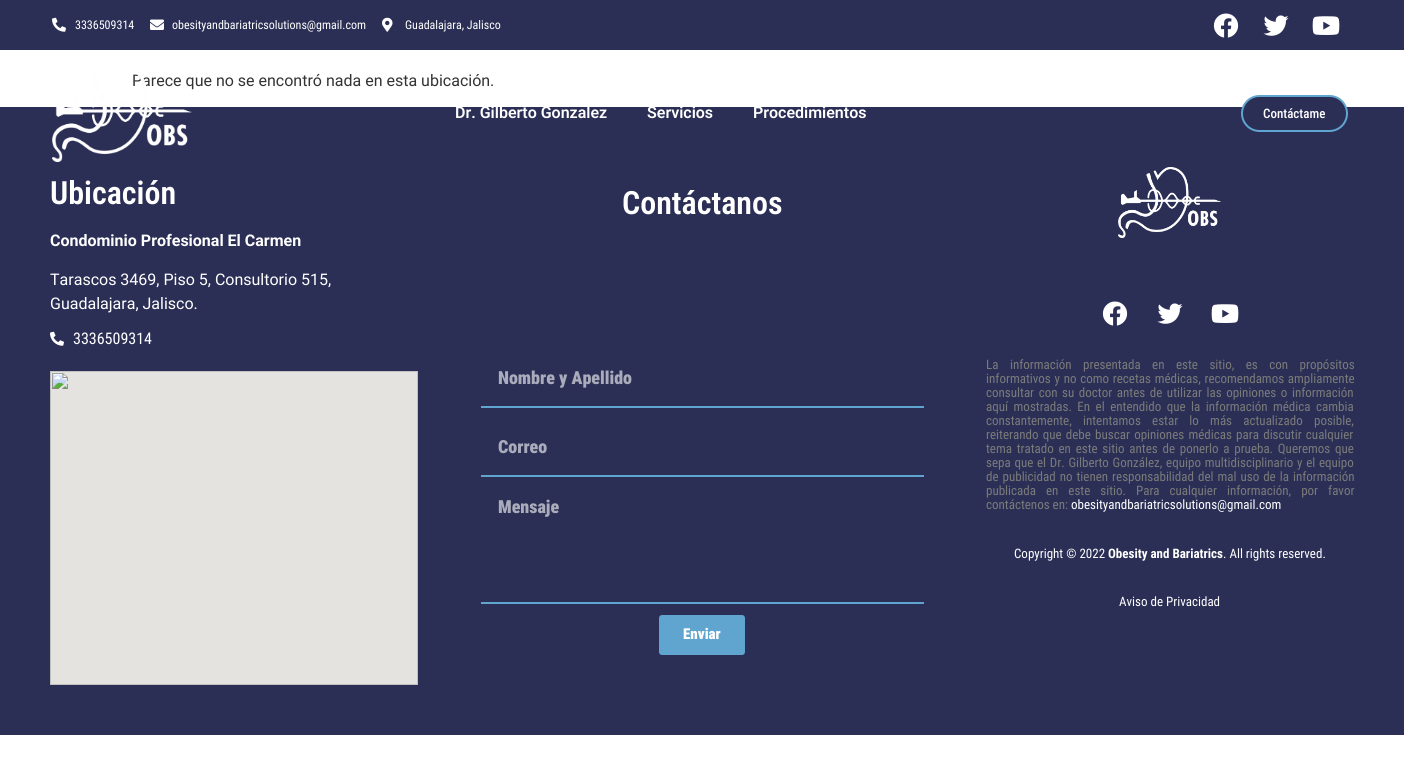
#include <cairo.h>
#include <math.h>
#include <stddef.h>


static void spaced_text(cairo_t *cr, double x, double y, const char *s, double letter, double word) {
    cairo_move_to(cr, x, y);
    while (*s) {
        char ch[5] = {0};
        int n = 0;
        do ch[n++] = *s++; while ((*s & 0xC0) == 0x80);
        cairo_show_text(cr, ch);
        cairo_rel_move_to(cr, letter + word * (*ch == ' '), 0);
    }
}

static void round_rect(cairo_t *cr, double x, double y, double w, double h, double r) {
    cairo_new_sub_path(cr);
    cairo_arc(cr, x + w - r, y + h - r, r, 0, M_PI / 2);
    cairo_arc(cr, x + r, y + h - r, r, M_PI / 2, M_PI);
    cairo_arc(cr, x + r, y + r, r, M_PI, 1.5 * M_PI);
    cairo_arc(cr, x + w - r, y + r, r, 1.5 * M_PI, 2 * M_PI);
    cairo_close_path(cr);
}

static void picture(cairo_t *cr, const char *path, double x, double y, double w, double h) {
    cairo_surface_t *image = cairo_image_surface_create_from_png(path);
    cairo_save(cr);
    cairo_set_source_surface(cr, image, x, y);
    cairo_rectangle(cr, x, y, w, h);
    cairo_fill(cr);
    cairo_restore(cr);
    cairo_surface_destroy(image);
}

int main(void) {
    cairo_surface_t *surface = cairo_image_surface_create(CAIRO_FORMAT_RGB24, 1404, 766);
    cairo_t *cr = cairo_create(surface);
    cairo_font_options_t *options = cairo_font_options_create();
    cairo_font_options_set_hint_metrics(options, CAIRO_HINT_METRICS_OFF);
    cairo_font_options_set_hint_style(options, CAIRO_HINT_STYLE_NONE);
    cairo_set_font_options(cr, options);
    cairo_set_miter_limit(cr, 4);
    cairo_set_source_rgb(cr, 1, 1, 1);
    cairo_paint(cr);
    cairo_set_source_rgb(cr, 0.169, 0.184, 0.333);
    cairo_rectangle(cr, 0, 0, 1404, 50);
    cairo_fill(cr);
    picture(cr, "img1.png", 52, 17, 14, 15);
    cairo_select_font_face(cr, "Roboto Condensed", CAIRO_FONT_SLANT_NORMAL, CAIRO_FONT_WEIGHT_NORMAL);
    cairo_set_font_size(cr, 12);
    cairo_set_source_rgb(cr, 1, 1, 1);
    cairo_move_to(cr, 75, 29);
    cairo_show_text(cr, "3336509314");
    picture(cr, "img2.png", 150, 19, 14, 11);
    cairo_move_to(cr, 172, 29);
    cairo_show_text(cr, "obesityandbariatricsolutions@gmail.com");
    picture(cr, "img3.png", 382, 17, 11, 15);
    cairo_move_to(cr, 405, 29);
    cairo_show_text(cr, "Guadalajara, Jalisco");
    picture(cr, "img4.png", 1213, 13, 26, 25);
    picture(cr, "img5.png", 1263, 15, 26, 21);
    picture(cr, "img6.png", 1312, 16, 28, 19);
    cairo_select_font_face(cr, "Roboto", CAIRO_FONT_SLANT_NORMAL, CAIRO_FONT_WEIGHT_NORMAL);
    cairo_set_font_size(cr, 16);
    cairo_set_source_rgb(cr, 0.2, 0.2, 0.2);
    cairo_move_to(cr, 132, 86);
    cairo_show_text(cr, "Parece que no se encontró nada en esta ubicación.");
    cairo_set_source_rgb(cr, 0.169, 0.184, 0.333);
    cairo_rectangle(cr, 0, 107, 1404, 628);
    cairo_fill(cr);
    picture(cr, "img7.png", 52, 74, 140, 88);
    cairo_select_font_face(cr, "Roboto SemiBold", CAIRO_FONT_SLANT_NORMAL, CAIRO_FONT_WEIGHT_NORMAL);
    cairo_set_source_rgb(cr, 1, 1, 1);
    cairo_move_to(cr, 455, 118);
    cairo_show_text(cr, "Dr. Gilberto Gonzalez");
    cairo_move_to(cr, 647, 118);
    cairo_show_text(cr, "Servicios");
    cairo_move_to(cr, 753, 118);
    cairo_show_text(cr, "Procedimientos");
    cairo_set_source_rgb(cr, 0.169, 0.184, 0.333);
    round_rect(cr, 1242, 96, 105, 35, 17.5);
    cairo_fill_preserve(cr);
    cairo_set_source_rgb(cr, 0.376, 0.643, 0.816);
    cairo_stroke(cr);
    cairo_select_font_face(cr, "Roboto Condensed Medium", CAIRO_FONT_SLANT_NORMAL, CAIRO_FONT_WEIGHT_NORMAL);
    cairo_set_font_size(cr, 13);
    cairo_set_source_rgb(cr, 1, 1, 1);
    cairo_move_to(cr, 1263, 118);
    cairo_show_text(cr, "Contáctame");
    cairo_select_font_face(cr, "Roboto Condensed SemiBold", CAIRO_FONT_SLANT_NORMAL, CAIRO_FONT_WEIGHT_NORMAL);
    cairo_set_font_size(cr, 32);
    cairo_move_to(cr, 50, 204);
    cairo_show_text(cr, "Ubicación");
    cairo_select_font_face(cr, "Roboto", CAIRO_FONT_SLANT_NORMAL, CAIRO_FONT_WEIGHT_BOLD);
    cairo_set_font_size(cr, 16);
    cairo_move_to(cr, 50, 246);
    cairo_show_text(cr, "Condominio Profesional El Carmen");
    cairo_select_font_face(cr, "Roboto", CAIRO_FONT_SLANT_NORMAL, CAIRO_FONT_WEIGHT_NORMAL);
    cairo_move_to(cr, 50, 285);
    cairo_show_text(cr, "Tarascos 3469, Piso 5, Consultorio 515,");
    cairo_move_to(cr, 50, 309);
    cairo_show_text(cr, "Guadalajara, Jalisco.");
    picture(cr, "img1.png", 50, 331, 14, 15);
    cairo_select_font_face(cr, "Roboto Condensed", CAIRO_FONT_SLANT_NORMAL, CAIRO_FONT_WEIGHT_NORMAL);
    cairo_move_to(cr, 73, 344);
    cairo_show_text(cr, "3336509314");
    picture(cr, "img8.png", 50, 371, 368, 314);
    cairo_select_font_face(cr, "Roboto Condensed SemiBold", CAIRO_FONT_SLANT_NORMAL, CAIRO_FONT_WEIGHT_NORMAL);
    cairo_set_font_size(cr, 32);
    cairo_move_to(cr, 622, 214);
    cairo_show_text(cr, "Contáctanos");
    cairo_set_source_rgb(cr, 0.376, 0.643, 0.816);
    cairo_rectangle(cr, 481, 406, 443, 2);
    cairo_fill(cr);
    cairo_select_font_face(cr, "Roboto Condensed Black", CAIRO_FONT_SLANT_NORMAL, CAIRO_FONT_WEIGHT_NORMAL);
    cairo_set_font_size(cr, 18);
    cairo_set_source_rgb(cr, 0.667, 0.675, 0.733);
    cairo_move_to(cr, 498, 384);
    cairo_show_text(cr, "Nombre y Apellido");
    cairo_set_source_rgb(cr, 0.376, 0.643, 0.816);
    cairo_rectangle(cr, 481, 475, 443, 2);
    cairo_fill(cr);
    cairo_set_source_rgb(cr, 0.667, 0.675, 0.733);
    cairo_move_to(cr, 498, 453);
    cairo_show_text(cr, "Correo");
    cairo_set_source_rgb(cr, 0.376, 0.643, 0.816);
    cairo_rectangle(cr, 481, 602, 443, 2);
    cairo_fill(cr);
    cairo_set_source_rgb(cr, 0.667, 0.675, 0.733);
    cairo_move_to(cr, 498, 513);
    cairo_show_text(cr, "Mensaje");
    cairo_set_source_rgb(cr, 0.376, 0.643, 0.816);
    round_rect(cr, 659, 615, 86, 40, 3);
    cairo_fill(cr);
    cairo_set_font_size(cr, 15);
    cairo_set_source_rgb(cr, 1, 1, 1);
    cairo_move_to(cr, 683, 639);
    cairo_show_text(cr, "Enviar");
    picture(cr, "img9.png", 1118, 167, 103, 71);
    picture(cr, "img4.png", 1102, 301, 26, 25);
    picture(cr, "img5.png", 1157, 303, 26, 21);
    picture(cr, "img6.png", 1211, 304, 28, 19);
    cairo_select_font_face(cr, "Roboto Condensed", CAIRO_FONT_SLANT_NORMAL, CAIRO_FONT_WEIGHT_NORMAL);
    cairo_set_font_size(cr, 13);
    cairo_set_source_rgb(cr, 0.478, 0.478, 0.478);
    spaced_text(cr, 986, 369, "La información presentada en este sitio, es con propósitos", 0, 8.5);
    spaced_text(cr, 986, 383, "informativos y no como recetas médicas, recomendamos ampliamente", 0, 0.75);
    spaced_text(cr, 986, 397, "consultar con su doctor antes de utilizar las opiniones o información", 0, 1.6);
    spaced_text(cr, 986, 411, "aquí mostradas. En el entendido que la información médica cambia", 0, 2.5);
    spaced_text(cr, 986, 425, "constantemente, intentamos estar lo más actualizado posible,", 0, 8.25);
    spaced_text(cr, 986, 439, "reiterando que debe buscar opiniones médicas para discutir cualquier", 0, 1.25);
    spaced_text(cr, 986, 453, "tema tratado en este sitio antes de ponerlo a prueba. Queremos que", 0, 1.75);
    spaced_text(cr, 986, 467, "sepa que el Dr. Gilberto González, equipo multidisciplinario y el equipo", 0, 0.75);
    spaced_text(cr, 986, 481, "de publicidad no tienen responsabilidad del mal uso de la información", 0, 1);
    spaced_text(cr, 986, 495, "publicada en este sitio. Para cualquier información, por favor", 0, 7);
    cairo_move_to(cr, 986, 509);
    cairo_show_text(cr, "contáctenos en:");
    cairo_set_source_rgb(cr, 1, 1, 1);
    cairo_move_to(cr, 1071, 509);
    cairo_show_text(cr, "obesityandbariatricsolutions@gmail.com");
    cairo_move_to(cr, 1014, 558);
    cairo_show_text(cr, "Copyright © 2022");
    cairo_select_font_face(cr, "Roboto Condensed", CAIRO_FONT_SLANT_NORMAL, CAIRO_FONT_WEIGHT_BOLD);
    cairo_move_to(cr, 1108, 558);
    cairo_show_text(cr, "Obesity and Bariatrics");
    cairo_select_font_face(cr, "Roboto Condensed", CAIRO_FONT_SLANT_NORMAL, CAIRO_FONT_WEIGHT_NORMAL);
    cairo_move_to(cr, 1223, 558);
    cairo_show_text(cr, ". All rights reserved.");
    cairo_move_to(cr, 1119, 606);
    cairo_show_text(cr, "Aviso de Privacidad");
    cairo_surface_write_to_png(surface, "page.png");
    cairo_font_options_destroy(options);
    cairo_destroy(cr);
    cairo_surface_destroy(surface);
    return 0;
}
